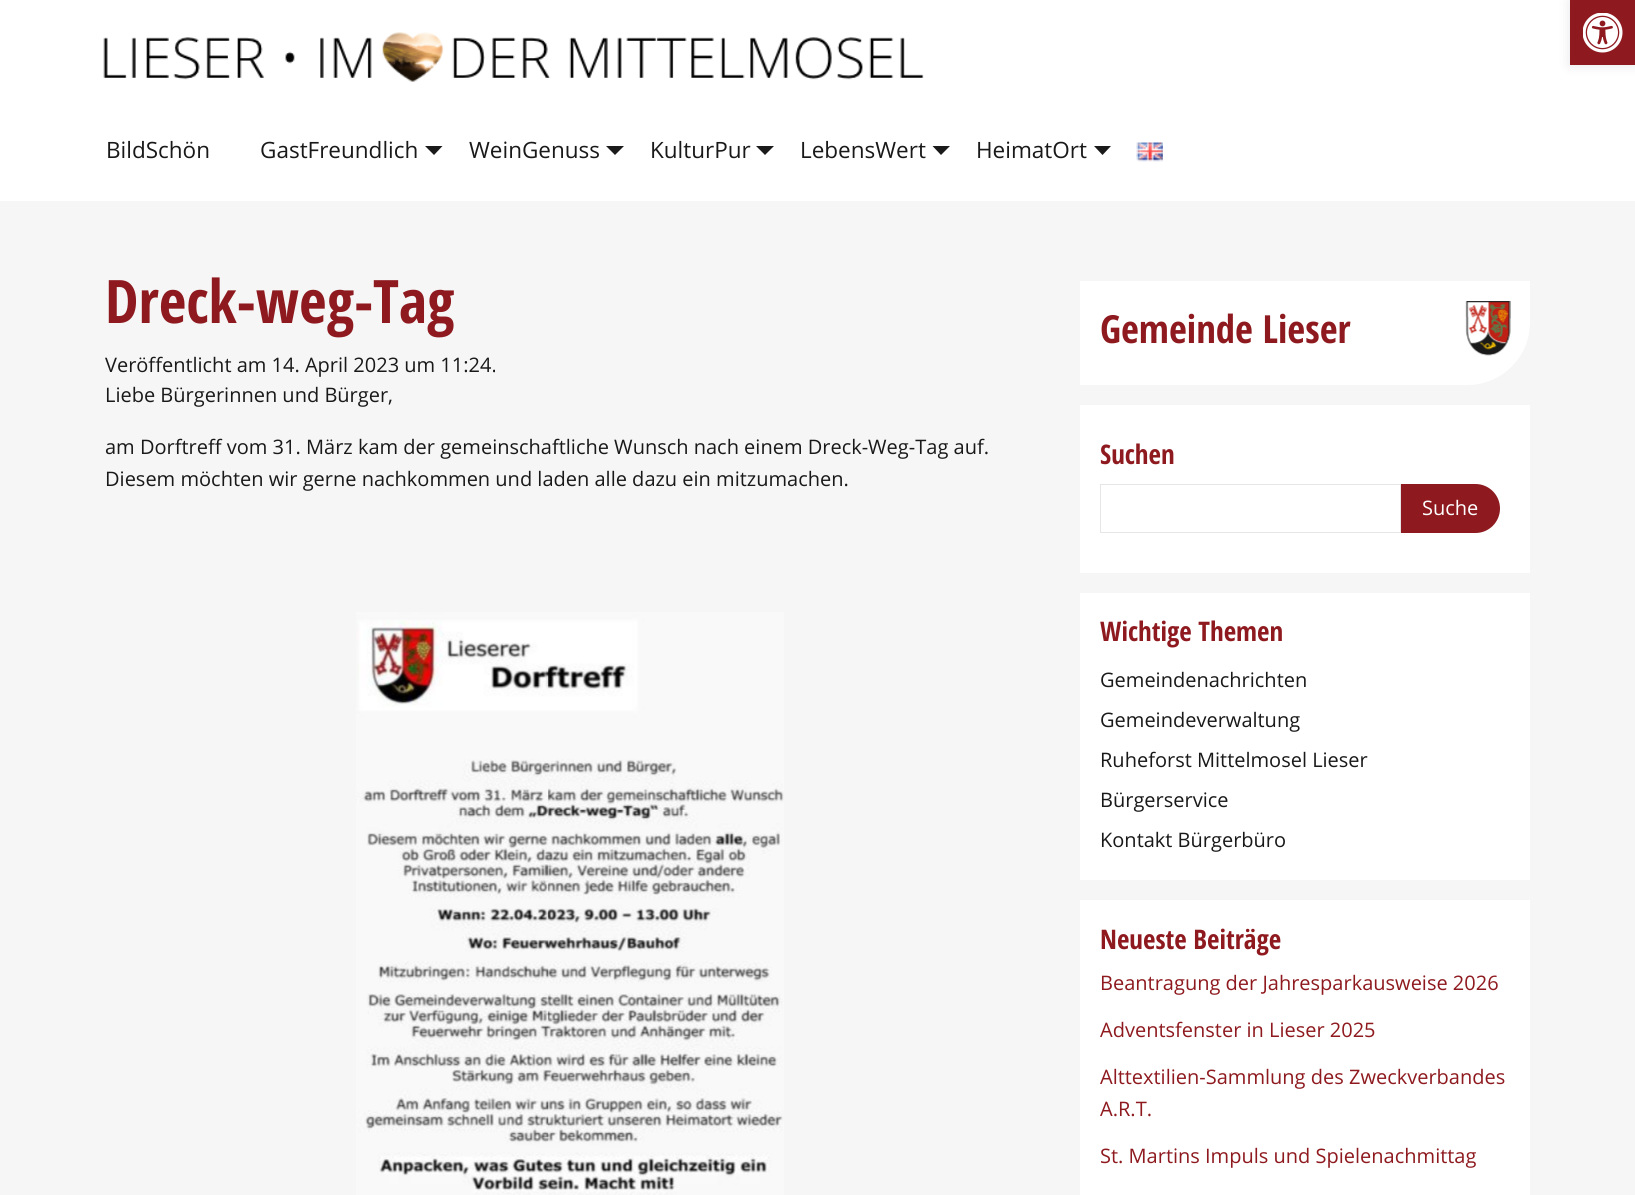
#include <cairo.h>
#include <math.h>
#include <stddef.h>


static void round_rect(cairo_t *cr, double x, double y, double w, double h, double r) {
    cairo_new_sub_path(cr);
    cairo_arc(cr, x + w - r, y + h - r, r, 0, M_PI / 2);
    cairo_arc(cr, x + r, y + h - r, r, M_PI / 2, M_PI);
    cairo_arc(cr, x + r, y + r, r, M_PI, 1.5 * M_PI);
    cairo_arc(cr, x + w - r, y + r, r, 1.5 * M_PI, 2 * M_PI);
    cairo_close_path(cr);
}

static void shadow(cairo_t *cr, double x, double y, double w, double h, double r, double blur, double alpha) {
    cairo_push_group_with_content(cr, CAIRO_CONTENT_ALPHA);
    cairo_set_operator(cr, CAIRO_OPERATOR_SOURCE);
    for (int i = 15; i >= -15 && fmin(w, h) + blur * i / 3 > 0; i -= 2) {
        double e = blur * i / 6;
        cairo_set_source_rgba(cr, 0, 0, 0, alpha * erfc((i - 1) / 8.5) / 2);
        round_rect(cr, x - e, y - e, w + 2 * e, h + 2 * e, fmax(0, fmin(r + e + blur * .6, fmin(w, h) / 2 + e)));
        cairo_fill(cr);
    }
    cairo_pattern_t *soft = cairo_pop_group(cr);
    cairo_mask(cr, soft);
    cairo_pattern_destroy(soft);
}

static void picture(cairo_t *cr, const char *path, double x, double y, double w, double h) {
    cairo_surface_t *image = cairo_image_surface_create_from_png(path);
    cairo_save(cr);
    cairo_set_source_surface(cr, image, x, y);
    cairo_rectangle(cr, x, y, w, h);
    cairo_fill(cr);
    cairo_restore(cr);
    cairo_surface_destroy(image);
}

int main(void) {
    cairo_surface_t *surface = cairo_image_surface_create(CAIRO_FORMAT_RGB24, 1635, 1195);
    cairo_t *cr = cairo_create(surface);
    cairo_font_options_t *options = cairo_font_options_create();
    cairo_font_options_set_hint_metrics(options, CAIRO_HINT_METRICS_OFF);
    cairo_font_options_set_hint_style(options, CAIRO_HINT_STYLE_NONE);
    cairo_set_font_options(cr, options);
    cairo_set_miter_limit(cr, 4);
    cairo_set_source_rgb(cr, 0.961, 0.961, 0.961);
    cairo_paint(cr);
    cairo_set_source_rgb(cr, 1, 1, 1);
    cairo_rectangle(cr, 0, 0, 1635, 201);
    cairo_fill(cr);
    cairo_set_source_rgb(cr, 0, 0, 0);
    shadow(cr, 1570, 0, 65, 65, 0, 6, 0.1);
    cairo_set_source_rgb(cr, 0.557, 0.102, 0.125);
    cairo_rectangle(cr, 1570, 0, 65, 65);
    cairo_fill(cr);
    picture(cr, "img1.png", 1583, 13, 40, 40);
    picture(cr, "img2.png", 103, 32, 821, 50);
    cairo_select_font_face(cr, "Open Sans", CAIRO_FONT_SLANT_NORMAL, CAIRO_FONT_WEIGHT_NORMAL);
    cairo_set_font_size(cr, 22.5);
    cairo_set_source_rgb(cr, 0.098, 0.098, 0.098);
    cairo_move_to(cr, 106, 158);
    cairo_show_text(cr, "BildSchön");
    cairo_move_to(cr, 260, 158);
    cairo_show_text(cr, "GastFreundlich");
    cairo_set_source_rgb(cr, 0.102, 0.102, 0.102);
    cairo_new_path(cr);
    cairo_move_to(cr, 425, 146);
    cairo_line_to(cr, 442.5, 146);
    cairo_line_to(cr, 434, 155);
    cairo_close_path(cr);
    cairo_fill(cr);
    cairo_set_source_rgb(cr, 0.098, 0.098, 0.098);
    cairo_move_to(cr, 469, 158);
    cairo_show_text(cr, "WeinGenuss");
    cairo_set_source_rgb(cr, 0.102, 0.102, 0.102);
    cairo_new_path(cr);
    cairo_move_to(cr, 606, 146);
    cairo_line_to(cr, 624, 146);
    cairo_line_to(cr, 615, 155);
    cairo_close_path(cr);
    cairo_fill(cr);
    cairo_set_source_rgb(cr, 0.098, 0.098, 0.098);
    cairo_move_to(cr, 650, 158);
    cairo_show_text(cr, "KulturPur");
    cairo_set_source_rgb(cr, 0.102, 0.102, 0.102);
    cairo_new_path(cr);
    cairo_move_to(cr, 756, 146);
    cairo_line_to(cr, 774, 146);
    cairo_line_to(cr, 765, 155);
    cairo_close_path(cr);
    cairo_fill(cr);
    cairo_set_source_rgb(cr, 0.098, 0.098, 0.098);
    cairo_move_to(cr, 800, 158);
    cairo_show_text(cr, "LebensWert");
    cairo_set_source_rgb(cr, 0.102, 0.102, 0.102);
    cairo_new_path(cr);
    cairo_move_to(cr, 932.5, 146);
    cairo_line_to(cr, 950, 146);
    cairo_line_to(cr, 941, 155);
    cairo_close_path(cr);
    cairo_fill(cr);
    cairo_set_source_rgb(cr, 0.098, 0.098, 0.098);
    cairo_move_to(cr, 976, 158);
    cairo_show_text(cr, "HeimatOrt");
    cairo_set_source_rgb(cr, 0.102, 0.102, 0.102);
    cairo_new_path(cr);
    cairo_move_to(cr, 1094, 146);
    cairo_line_to(cr, 1111, 146);
    cairo_line_to(cr, 1102.5, 155);
    cairo_close_path(cr);
    cairo_fill(cr);
    picture(cr, "img3.png", 1136, 142, 27, 20);
    cairo_select_font_face(cr, "Open Sans Condensed", CAIRO_FONT_SLANT_NORMAL, CAIRO_FONT_WEIGHT_BOLD);
    cairo_set_font_size(cr, 60);
    cairo_set_source_rgb(cr, 0.557, 0.102, 0.122);
    cairo_move_to(cr, 105, 323);
    cairo_show_text(cr, "Dreck-weg-Tag");
    cairo_select_font_face(cr, "Open Sans", CAIRO_FONT_SLANT_NORMAL, CAIRO_FONT_WEIGHT_NORMAL);
    cairo_set_font_size(cr, 20);
    cairo_set_source_rgb(cr, 0.098, 0.098, 0.098);
    cairo_move_to(cr, 105, 372);
    cairo_show_text(cr, "Veröffentlicht am 14. April 2023 um 11:24.");
    cairo_move_to(cr, 105, 402);
    cairo_show_text(cr, "Liebe Bürgerinnen und Bürger,");
    cairo_move_to(cr, 105, 454);
    cairo_show_text(cr, "am Dorftreff vom 31. März kam der gemeinschaftliche Wunsch nach einem Dreck-Weg-Tag auf.");
    cairo_move_to(cr, 105, 486);
    cairo_show_text(cr, "Diesem möchten wir gerne nachkommen und laden alle dazu ein mitzumachen.");
    picture(cr, "img4.png", 356, 612, 428, 583);
    cairo_set_source_rgb(cr, 1, 1, 1);
    cairo_new_path(cr);
    cairo_move_to(cr, 1080, 281);
    cairo_line_to(cr, 1530, 281);
    cairo_line_to(cr, 1530, 322);
    cairo_curve_to(cr, 1530, 357, 1502, 385, 1467, 385);
    cairo_line_to(cr, 1080, 385);
    cairo_close_path(cr);
    cairo_fill(cr);
    cairo_select_font_face(cr, "Open Sans Condensed", CAIRO_FONT_SLANT_NORMAL, CAIRO_FONT_WEIGHT_BOLD);
    cairo_set_font_size(cr, 38.75);
    cairo_set_source_rgb(cr, 0.557, 0.102, 0.122);
    cairo_move_to(cr, 1100, 343);
    cairo_show_text(cr, "Gemeinde Lieser");
    picture(cr, "img5.png", 1465, 301, 46, 55);
    cairo_set_source_rgb(cr, 1, 1, 1);
    cairo_rectangle(cr, 1080, 405, 450, 168);
    cairo_fill(cr);
    cairo_set_font_size(cr, 27);
    cairo_set_source_rgb(cr, 0.557, 0.102, 0.122);
    cairo_move_to(cr, 1100, 464);
    cairo_show_text(cr, "Suchen");
    cairo_rectangle(cr, 1100.5, 484.5, 300, 48);
    cairo_set_source_rgb(cr, 0.902, 0.902, 0.902);
    cairo_set_line_width(cr, 1);
    cairo_stroke(cr);
    cairo_set_source_rgb(cr, 0.557, 0.102, 0.122);
    cairo_new_path(cr);
    cairo_move_to(cr, 1401, 484);
    cairo_line_to(cr, 1475.5, 484);
    cairo_curve_to(cr, 1489, 484, 1500, 495, 1500, 508.5);
    cairo_curve_to(cr, 1500, 522, 1489, 533, 1475.5, 533);
    cairo_line_to(cr, 1401, 533);
    cairo_close_path(cr);
    cairo_fill(cr);
    cairo_select_font_face(cr, "Open Sans", CAIRO_FONT_SLANT_NORMAL, CAIRO_FONT_WEIGHT_NORMAL);
    cairo_set_font_size(cr, 20);
    cairo_set_source_rgb(cr, 1, 1, 1);
    cairo_move_to(cr, 1422, 515);
    cairo_show_text(cr, "Suche");
    cairo_rectangle(cr, 1080, 593, 450, 287);
    cairo_fill(cr);
    cairo_select_font_face(cr, "Open Sans Condensed", CAIRO_FONT_SLANT_NORMAL, CAIRO_FONT_WEIGHT_BOLD);
    cairo_set_font_size(cr, 27);
    cairo_set_source_rgb(cr, 0.557, 0.102, 0.122);
    cairo_move_to(cr, 1100, 641);
    cairo_show_text(cr, "Wichtige Themen");
    cairo_select_font_face(cr, "Open Sans", CAIRO_FONT_SLANT_NORMAL, CAIRO_FONT_WEIGHT_NORMAL);
    cairo_set_font_size(cr, 20);
    cairo_set_source_rgb(cr, 0.098, 0.098, 0.098);
    cairo_move_to(cr, 1100, 687);
    cairo_show_text(cr, "Gemeindenachrichten");
    cairo_move_to(cr, 1100, 727);
    cairo_show_text(cr, "Gemeindeverwaltung");
    cairo_move_to(cr, 1100, 767);
    cairo_show_text(cr, "Ruheforst Mittelmosel Lieser");
    cairo_move_to(cr, 1100, 807);
    cairo_show_text(cr, "Bürgerservice");
    cairo_move_to(cr, 1100, 847);
    cairo_show_text(cr, "Kontakt Bürgerbüro");
    cairo_set_source_rgb(cr, 1, 1, 1);
    cairo_rectangle(cr, 1080, 900, 450, 295);
    cairo_fill(cr);
    cairo_select_font_face(cr, "Open Sans Condensed", CAIRO_FONT_SLANT_NORMAL, CAIRO_FONT_WEIGHT_BOLD);
    cairo_set_font_size(cr, 27);
    cairo_set_source_rgb(cr, 0.557, 0.102, 0.122);
    cairo_move_to(cr, 1100, 949);
    cairo_show_text(cr, "Neueste Beiträge");
    cairo_select_font_face(cr, "Open Sans", CAIRO_FONT_SLANT_NORMAL, CAIRO_FONT_WEIGHT_NORMAL);
    cairo_set_font_size(cr, 20);
    cairo_move_to(cr, 1100, 990);
    cairo_show_text(cr, "Beantragung der Jahresparkausweise 2026");
    cairo_move_to(cr, 1100, 1037);
    cairo_show_text(cr, "Adventsfenster in Lieser 2025");
    cairo_move_to(cr, 1100, 1084);
    cairo_show_text(cr, "Alttextilien-Sammlung des Zweckverbandes");
    cairo_move_to(cr, 1100, 1116);
    cairo_show_text(cr, "A.R.T.");
    cairo_move_to(cr, 1100, 1163);
    cairo_show_text(cr, "St. Martins Impuls und Spielenachmittag");
    cairo_surface_write_to_png(surface, "page.png");
    cairo_font_options_destroy(options);
    cairo_destroy(cr);
    cairo_surface_destroy(surface);
    return 0;
}
